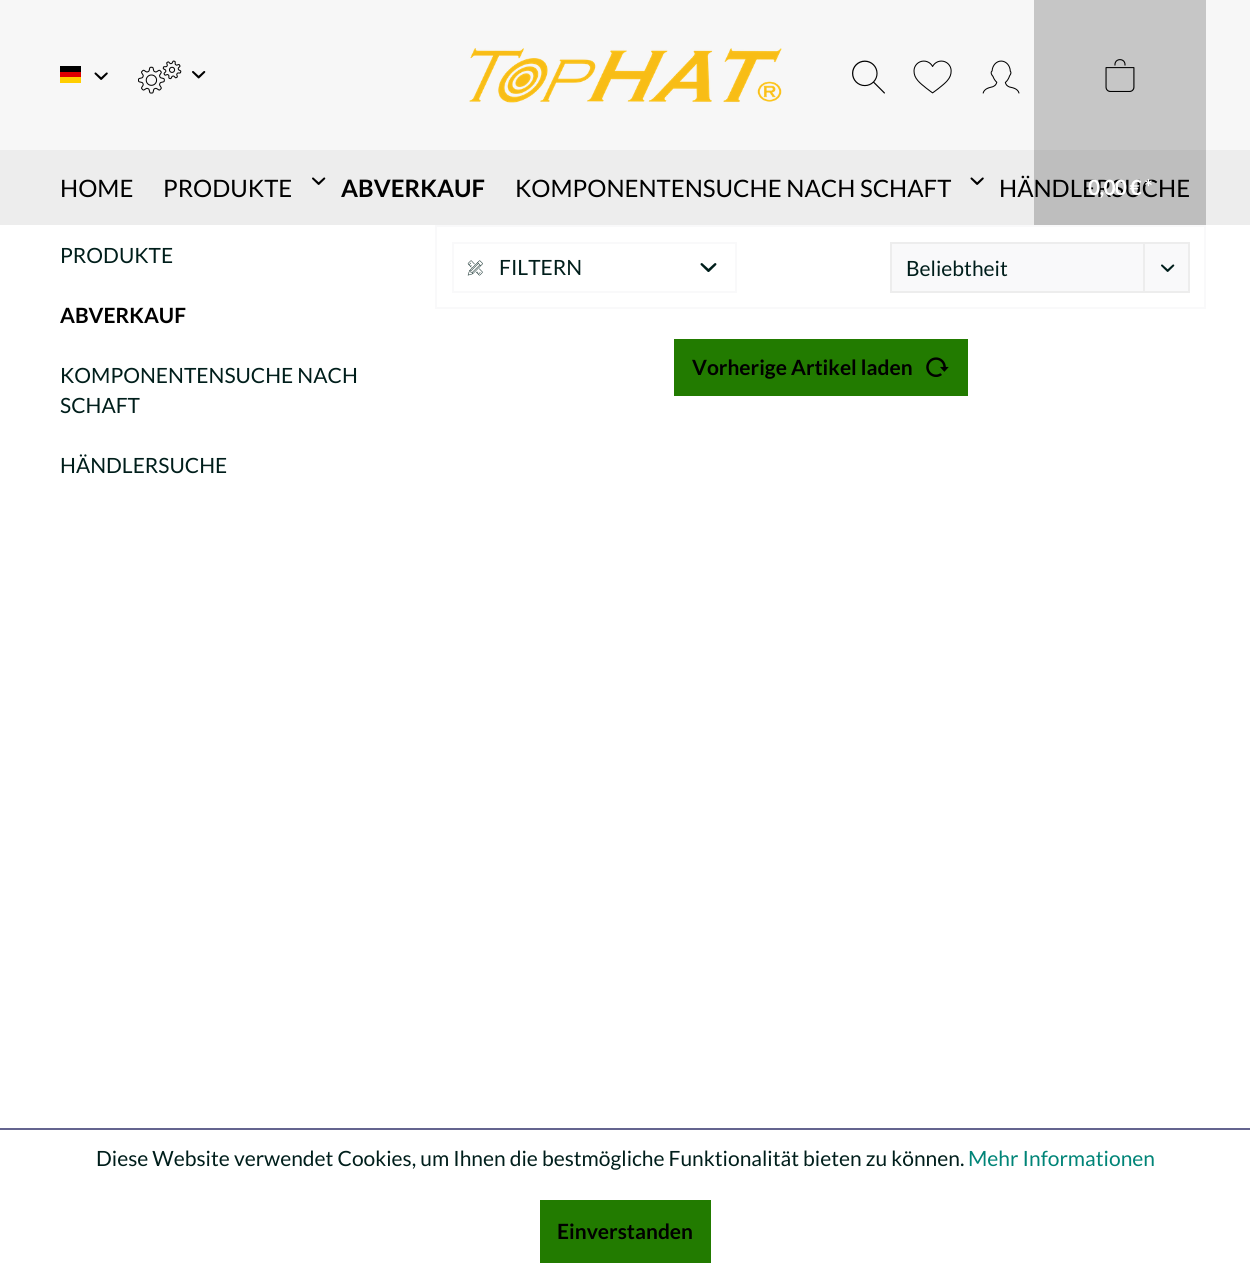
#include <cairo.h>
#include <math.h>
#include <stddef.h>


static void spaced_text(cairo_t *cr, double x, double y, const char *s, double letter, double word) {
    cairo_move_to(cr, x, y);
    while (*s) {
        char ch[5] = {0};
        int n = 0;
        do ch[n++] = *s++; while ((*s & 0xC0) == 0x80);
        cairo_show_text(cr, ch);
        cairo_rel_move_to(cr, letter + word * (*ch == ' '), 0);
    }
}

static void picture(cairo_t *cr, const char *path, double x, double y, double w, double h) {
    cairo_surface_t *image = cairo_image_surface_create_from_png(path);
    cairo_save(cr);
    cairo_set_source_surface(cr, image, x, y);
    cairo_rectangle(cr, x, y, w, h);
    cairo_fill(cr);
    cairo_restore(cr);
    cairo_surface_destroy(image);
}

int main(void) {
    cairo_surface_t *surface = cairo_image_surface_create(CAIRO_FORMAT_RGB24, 1250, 1277);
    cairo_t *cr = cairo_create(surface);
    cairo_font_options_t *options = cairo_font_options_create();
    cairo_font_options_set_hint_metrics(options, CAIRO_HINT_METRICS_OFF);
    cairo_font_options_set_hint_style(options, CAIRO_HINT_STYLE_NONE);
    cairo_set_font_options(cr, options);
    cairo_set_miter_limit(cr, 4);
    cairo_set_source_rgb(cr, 1, 1, 1);
    cairo_paint(cr);
    cairo_set_source_rgb(cr, 0.929, 0.929, 0.929);
    cairo_rectangle(cr, 0, 150, 1250, 75);
    cairo_fill(cr);
    cairo_select_font_face(cr, "Lato", CAIRO_FONT_SLANT_NORMAL, CAIRO_FONT_WEIGHT_NORMAL);
    cairo_set_font_size(cr, 24);
    cairo_set_source_rgb(cr, 0, 0, 0);
    cairo_move_to(cr, 60, 197);
    cairo_show_text(cr, "HOME");
    cairo_move_to(cr, 163, 197);
    cairo_show_text(cr, "PRODUKTE");
    picture(cr, "img1.png", 312, 177, 14, 8);
    cairo_select_font_face(cr, "Lato", CAIRO_FONT_SLANT_NORMAL, CAIRO_FONT_WEIGHT_BOLD);
    cairo_move_to(cr, 341, 197);
    cairo_show_text(cr, "ABVERKAUF");
    cairo_select_font_face(cr, "Lato", CAIRO_FONT_SLANT_NORMAL, CAIRO_FONT_WEIGHT_NORMAL);
    cairo_move_to(cr, 515, 197);
    cairo_show_text(cr, "KOMPONENTENSUCHE NACH SCHAFT");
    picture(cr, "img2.png", 970, 177, 14, 8);
    cairo_move_to(cr, 999, 197);
    cairo_show_text(cr, "HÄNDLERSUCHE");
    cairo_set_source_rgb(cr, 0.965, 0.965, 0.965);
    cairo_rectangle(cr, 0, 0, 1250, 150);
    cairo_fill(cr);
    picture(cr, "img3.png", 469, 48, 313, 55);
    cairo_set_source_rgb(cr, 0, 0, 0);
    cairo_rectangle(cr, 60, 66, 21, 6);
    cairo_fill(cr);
    cairo_set_source_rgb(cr, 0.867, 0, 0);
    cairo_rectangle(cr, 60, 72, 21, 5);
    cairo_fill(cr);
    cairo_set_source_rgb(cr, 1, 0.808, 0);
    cairo_rectangle(cr, 60, 77, 21, 6);
    cairo_fill(cr);
    picture(cr, "img4.png", 94, 72, 14, 8);
    picture(cr, "img5.png", 138, 60, 44, 34);
    picture(cr, "img6.png", 192, 71, 14, 8);
    picture(cr, "img7.png", 852, 60, 33, 34);
    picture(cr, "img8.png", 913, 60, 39, 34);
    picture(cr, "img9.png", 982, 60, 38, 34);
    cairo_set_source_rgba(cr, 0, 0, 0, 0.2);
    cairo_rectangle(cr, 1034, 0, 172, 225);
    cairo_fill(cr);
    picture(cr, "img10.png", 1105, 59, 30, 33);
    cairo_select_font_face(cr, "Lato", CAIRO_FONT_SLANT_NORMAL, CAIRO_FONT_WEIGHT_BOLD);
    cairo_set_font_size(cr, 21);
    cairo_set_source_rgb(cr, 1, 1, 1);
    spaced_text(cr, 1088, 195, "0,00 € *", -0.75, 0);
    cairo_select_font_face(cr, "Lato", CAIRO_FONT_SLANT_NORMAL, CAIRO_FONT_WEIGHT_NORMAL);
    cairo_set_source_rgb(cr, 0, 0.118, 0.106);
    cairo_move_to(cr, 60, 263);
    cairo_show_text(cr, "PRODUKTE");
    cairo_select_font_face(cr, "Lato", CAIRO_FONT_SLANT_NORMAL, CAIRO_FONT_WEIGHT_BOLD);
    cairo_set_source_rgb(cr, 0, 0, 0);
    cairo_move_to(cr, 60, 323);
    cairo_show_text(cr, "ABVERKAUF");
    cairo_select_font_face(cr, "Lato", CAIRO_FONT_SLANT_NORMAL, CAIRO_FONT_WEIGHT_NORMAL);
    cairo_set_source_rgb(cr, 0, 0.118, 0.106);
    cairo_move_to(cr, 60, 383);
    cairo_show_text(cr, "KOMPONENTENSUCHE NACH");
    cairo_move_to(cr, 60, 413);
    cairo_show_text(cr, "SCHAFT");
    cairo_move_to(cr, 60, 473);
    cairo_show_text(cr, "HÄNDLERSUCHE");
    cairo_rectangle(cr, 436, 226, 769, 82);
    cairo_set_source_rgb(cr, 0.973, 0.973, 0.98);
    cairo_stroke(cr);
    cairo_rectangle(cr, 453, 243, 283, 49);
    cairo_stroke(cr);
    picture(cr, "img11.png", 467, 260, 16, 16);
    cairo_set_source_rgb(cr, 0, 0.118, 0.106);
    cairo_move_to(cr, 499, 275);
    cairo_show_text(cr, "FILTERN");
    picture(cr, "img12.png", 700, 263, 17, 9);
    cairo_set_source_rgb(cr, 0.973, 0.973, 0.98);
    cairo_rectangle(cr, 891, 243, 298, 49);
    cairo_fill_preserve(cr);
    cairo_set_source_rgb(cr, 0.929, 0.929, 0.929);
    cairo_stroke(cr);
    cairo_set_source_rgb(cr, 0, 0.118, 0.106);
    cairo_move_to(cr, 906, 276);
    cairo_show_text(cr, "Beliebtheit");
    cairo_set_source_rgb(cr, 0.929, 0.929, 0.929);
    cairo_rectangle(cr, 1143, 243, 2, 50);
    cairo_fill(cr);
    picture(cr, "img13.png", 1161, 264, 14, 8);
    cairo_set_source_rgb(cr, 0.133, 0.482, 0);
    cairo_rectangle(cr, 674, 339, 294, 57);
    cairo_fill(cr);
    cairo_select_font_face(cr, "Lato", CAIRO_FONT_SLANT_NORMAL, CAIRO_FONT_WEIGHT_BOLD);
    cairo_set_source_rgb(cr, 0, 0, 0);
    cairo_move_to(cr, 692, 375);
    cairo_show_text(cr, "Vorherige Artikel laden");
    picture(cr, "img14.png", 926, 357, 23, 20);
    cairo_set_source_rgb(cr, 0.392, 0.392, 0.561);
    cairo_rectangle(cr, 0, 1128, 1250, 2);
    cairo_fill(cr);
    cairo_select_font_face(cr, "Lato", CAIRO_FONT_SLANT_NORMAL, CAIRO_FONT_WEIGHT_NORMAL);
    cairo_set_source_rgb(cr, 0, 0.118, 0.106);
    cairo_move_to(cr, 96, 1166);
    cairo_show_text(cr, "Diese Website verwendet Cookies, um Ihnen die bestmögliche Funktionalität bieten zu können.");
    cairo_set_source_rgb(cr, 0, 0.518, 0.467);
    cairo_move_to(cr, 968, 1166);
    cairo_show_text(cr, "Mehr Informationen");
    cairo_set_source_rgb(cr, 0.133, 0.482, 0);
    cairo_rectangle(cr, 540, 1200, 171, 63);
    cairo_fill(cr);
    cairo_select_font_face(cr, "Lato", CAIRO_FONT_SLANT_NORMAL, CAIRO_FONT_WEIGHT_BOLD);
    cairo_set_source_rgb(cr, 0, 0, 0);
    cairo_move_to(cr, 557, 1239);
    cairo_show_text(cr, "Einverstanden");
    cairo_surface_write_to_png(surface, "page.png");
    cairo_font_options_destroy(options);
    cairo_destroy(cr);
    cairo_surface_destroy(surface);
    return 0;
}
